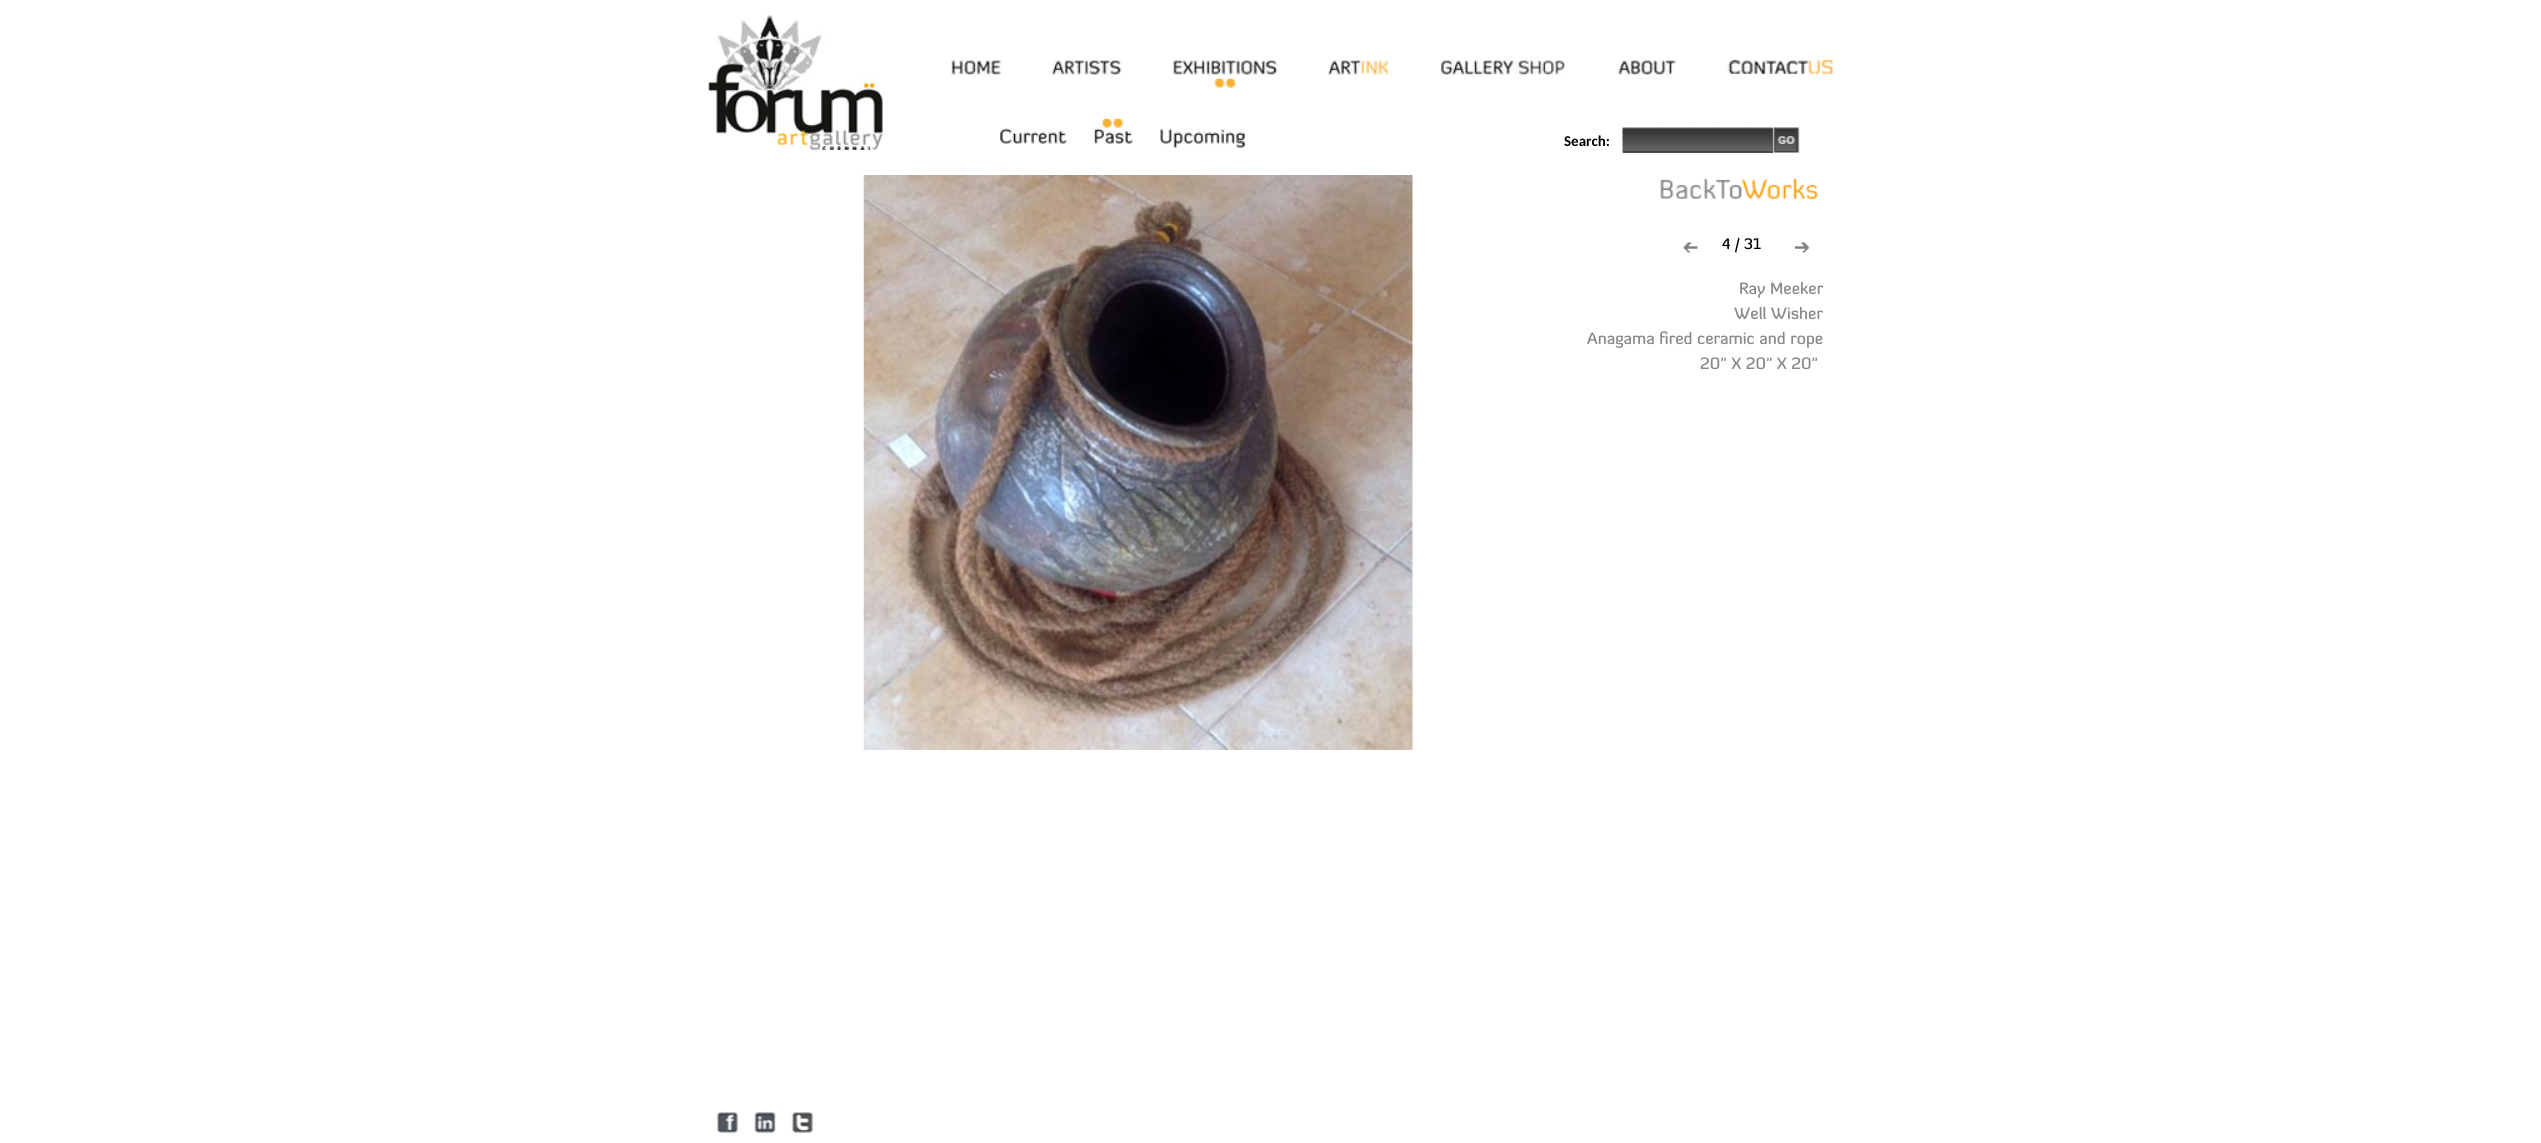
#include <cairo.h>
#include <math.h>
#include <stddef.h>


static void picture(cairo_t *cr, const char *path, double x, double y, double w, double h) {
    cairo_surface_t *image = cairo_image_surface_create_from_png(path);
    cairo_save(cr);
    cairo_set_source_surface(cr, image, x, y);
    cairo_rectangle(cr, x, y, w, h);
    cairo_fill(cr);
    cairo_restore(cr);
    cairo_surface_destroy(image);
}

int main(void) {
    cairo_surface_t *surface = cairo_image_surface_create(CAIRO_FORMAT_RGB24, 2541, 1143);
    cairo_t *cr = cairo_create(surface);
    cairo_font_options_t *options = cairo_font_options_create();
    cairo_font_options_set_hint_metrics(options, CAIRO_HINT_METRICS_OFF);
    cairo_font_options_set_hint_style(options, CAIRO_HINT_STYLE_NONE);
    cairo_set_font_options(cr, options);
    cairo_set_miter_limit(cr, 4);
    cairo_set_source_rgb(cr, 1, 1, 1);
    cairo_paint(cr);
    picture(cr, "img1.png", 708, 15, 175, 135);
    picture(cr, "img2.png", 951, 60, 51, 15);
    picture(cr, "img3.png", 1051, 60, 71, 15);
    picture(cr, "img4.png", 1214, 78, 22, 10);
    picture(cr, "img5.png", 1172, 60, 106, 15);
    picture(cr, "img6.png", 1328, 60, 61, 15);
    picture(cr, "img7.png", 1441, 60, 125, 15);
    picture(cr, "img8.png", 1617, 60, 60, 15);
    picture(cr, "img9.png", 1727, 60, 107, 14);
    picture(cr, "img10.png", 1000, 128, 67, 16);
    picture(cr, "img11.png", 1102, 118, 21, 10);
    picture(cr, "img12.png", 1093, 128, 40, 16);
    picture(cr, "img13.png", 1160, 128, 85, 20);
    cairo_select_font_face(cr, "Carlito", CAIRO_FONT_SLANT_NORMAL, CAIRO_FONT_WEIGHT_BOLD);
    cairo_set_font_size(cr, 15);
    cairo_set_source_rgb(cr, 0.012, 0.008, 0);
    cairo_move_to(cr, 1564, 146);
    cairo_show_text(cr, "Search:");
    cairo_set_source_rgb(cr, 0.388, 0.388, 0.388);
    cairo_rectangle(cr, 1623, 128, 150, 25);
    cairo_fill(cr);
    picture(cr, "img14.png", 1622, 127, 151, 26);
    picture(cr, "img15.png", 1773, 127, 27, 26);
    picture(cr, "img16.png", 863, 175, 550, 575);
    picture(cr, "img17.png", 1660, 178, 158, 21);
    cairo_select_font_face(cr, "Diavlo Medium", CAIRO_FONT_SLANT_NORMAL, CAIRO_FONT_WEIGHT_NORMAL);
    cairo_set_source_rgb(cr, 0.012, 0.008, 0);
    cairo_move_to(cr, 1722, 249);
    cairo_show_text(cr, "4 / 31");
    cairo_set_font_size(cr, 16.25);
    cairo_set_source_rgb(cr, 0.533, 0.533, 0.533);
    cairo_move_to(cr, 1739, 294);
    cairo_show_text(cr, "Ray Meeker");
    cairo_move_to(cr, 1734, 319);
    cairo_show_text(cr, "Well Wisher");
    cairo_move_to(cr, 1587, 344);
    cairo_show_text(cr, "Anagama fired ceramic and rope");
    cairo_move_to(cr, 1700, 369);
    cairo_show_text(cr, "20\" X 20\" X 20\"");
    picture(cr, "img18.png", 1683, 242, 15, 11);
    picture(cr, "img19.png", 1795, 242, 14, 11);
    picture(cr, "img20.png", 716, 1112, 22, 22);
    picture(cr, "img21.png", 754, 1112, 22, 22);
    picture(cr, "img22.png", 791, 1112, 22, 22);
    cairo_surface_write_to_png(surface, "page.png");
    cairo_font_options_destroy(options);
    cairo_destroy(cr);
    cairo_surface_destroy(surface);
    return 0;
}
